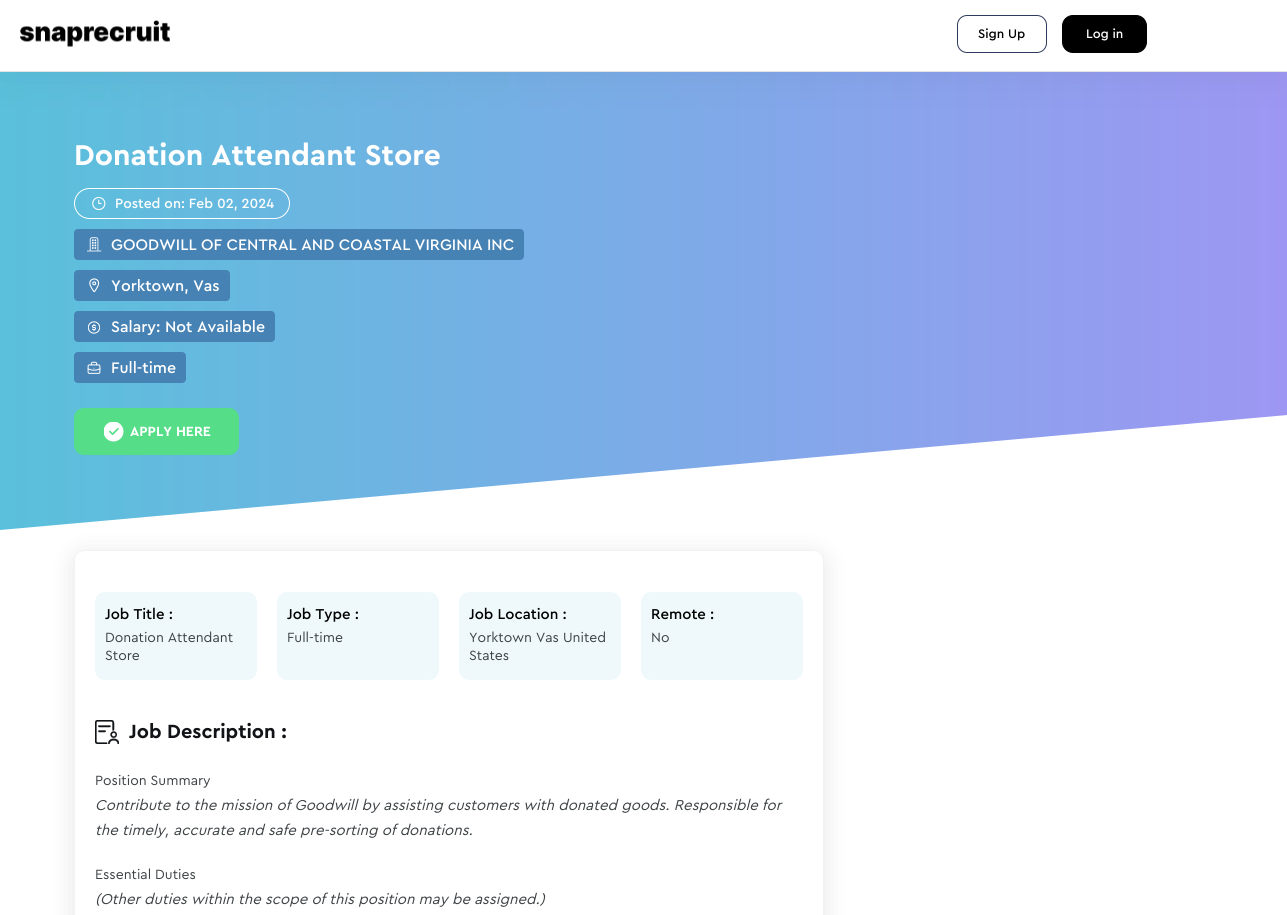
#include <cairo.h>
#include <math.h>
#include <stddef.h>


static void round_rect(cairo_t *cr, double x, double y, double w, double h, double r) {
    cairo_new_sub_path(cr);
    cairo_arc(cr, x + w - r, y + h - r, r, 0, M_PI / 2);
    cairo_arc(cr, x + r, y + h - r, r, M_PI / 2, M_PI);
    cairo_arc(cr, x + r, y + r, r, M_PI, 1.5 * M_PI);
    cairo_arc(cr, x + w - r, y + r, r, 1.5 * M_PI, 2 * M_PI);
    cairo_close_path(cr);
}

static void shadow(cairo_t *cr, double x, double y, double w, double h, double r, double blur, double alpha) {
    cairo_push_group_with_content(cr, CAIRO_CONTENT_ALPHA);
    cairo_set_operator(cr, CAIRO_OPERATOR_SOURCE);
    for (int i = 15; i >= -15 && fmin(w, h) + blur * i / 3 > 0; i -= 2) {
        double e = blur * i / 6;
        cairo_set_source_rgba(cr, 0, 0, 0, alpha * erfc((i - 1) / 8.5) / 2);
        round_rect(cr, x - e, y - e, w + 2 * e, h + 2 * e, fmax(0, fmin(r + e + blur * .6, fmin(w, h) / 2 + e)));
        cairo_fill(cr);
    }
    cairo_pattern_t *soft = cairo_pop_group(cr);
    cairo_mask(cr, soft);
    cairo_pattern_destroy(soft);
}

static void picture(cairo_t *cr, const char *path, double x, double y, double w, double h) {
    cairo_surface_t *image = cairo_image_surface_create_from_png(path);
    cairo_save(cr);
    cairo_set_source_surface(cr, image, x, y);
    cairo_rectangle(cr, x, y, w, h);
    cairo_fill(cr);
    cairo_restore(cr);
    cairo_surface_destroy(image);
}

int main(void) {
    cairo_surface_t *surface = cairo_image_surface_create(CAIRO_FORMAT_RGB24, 1287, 915);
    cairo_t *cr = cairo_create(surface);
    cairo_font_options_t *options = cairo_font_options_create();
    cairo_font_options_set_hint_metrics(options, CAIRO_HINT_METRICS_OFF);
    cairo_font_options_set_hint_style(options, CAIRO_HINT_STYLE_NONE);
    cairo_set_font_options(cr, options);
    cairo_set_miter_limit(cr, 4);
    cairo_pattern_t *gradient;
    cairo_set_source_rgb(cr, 1, 1, 1);
    cairo_paint(cr);
    cairo_set_source_rgb(cr, 0, 0, 0);
    shadow(cr, 74, 554, 750, 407, 10, 12, 0.1);
    gradient = cairo_pattern_create_linear(0, 300, 1287, 300);
    cairo_pattern_add_color_stop_rgba(gradient, 0, 0.353, 0.753, 0.859, 1);
    cairo_pattern_add_color_stop_rgba(gradient, 1, 0.616, 0.592, 0.953, 1);
    cairo_set_source(cr, gradient);
    cairo_pattern_destroy(gradient);
    cairo_new_path(cr);
    cairo_move_to(cr, 0, 70);
    cairo_line_to(cr, 0, 530);
    cairo_line_to(cr, 1287, 415);
    cairo_line_to(cr, 1287, 70);
    cairo_close_path(cr);
    cairo_fill(cr);
    cairo_set_source_rgb(cr, 0, 0, 0);
    shadow(cr, 0, 0, 1287, 72, 0, 24, 0.06);
    cairo_set_source_rgb(cr, 1, 1, 1);
    cairo_rectangle(cr, 0, 0, 1287, 71);
    cairo_fill(cr);
    cairo_set_source_rgb(cr, 0.894, 0.894, 0.894);
    cairo_rectangle(cr, 0, 71, 1287, 1);
    cairo_fill(cr);
    picture(cr, "img1.png", 20, 20, 150, 27);
    round_rect(cr, 957.5, 15.5, 89, 37, 9.5);
    cairo_set_source_rgb(cr, 0.176, 0.227, 0.357);
    cairo_set_line_width(cr, 1);
    cairo_stroke(cr);
    cairo_select_font_face(cr, "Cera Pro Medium", CAIRO_FONT_SLANT_NORMAL, CAIRO_FONT_WEIGHT_NORMAL);
    cairo_set_font_size(cr, 13);
    cairo_set_source_rgb(cr, 0, 0, 0);
    cairo_move_to(cr, 978, 38);
    cairo_show_text(cr, "Sign Up");
    round_rect(cr, 1062.5, 15.5, 84, 37, 10.5);
    cairo_fill_preserve(cr);
    cairo_stroke(cr);
    cairo_set_source_rgb(cr, 1, 1, 1);
    cairo_move_to(cr, 1086, 38);
    cairo_show_text(cr, "Log in");
    cairo_select_font_face(cr, "Cera Pro", CAIRO_FONT_SLANT_NORMAL, CAIRO_FONT_WEIGHT_BOLD);
    cairo_set_font_size(cr, 30);
    cairo_move_to(cr, 74, 165);
    cairo_show_text(cr, "Donation Attendant Store");
    round_rect(cr, 74.5, 188.5, 215, 30, 15);
    cairo_stroke(cr);
    picture(cr, "img2.png", 92, 196, 14, 15);
    cairo_select_font_face(cr, "Cera Pro Medium", CAIRO_FONT_SLANT_NORMAL, CAIRO_FONT_WEIGHT_NORMAL);
    cairo_set_font_size(cr, 14);
    cairo_move_to(cr, 115, 208);
    cairo_show_text(cr, "Posted on: Feb 02, 2024");
    cairo_set_source_rgb(cr, 0.275, 0.51, 0.706);
    round_rect(cr, 74, 229, 450, 31, 4);
    cairo_fill(cr);
    picture(cr, "img3.png", 87, 237, 15, 15);
    cairo_set_font_size(cr, 16);
    cairo_set_source_rgb(cr, 1, 1, 1);
    cairo_move_to(cr, 111, 250);
    cairo_show_text(cr, "GOODWILL OF CENTRAL AND COASTAL VIRGINIA INC");
    cairo_set_source_rgb(cr, 0.275, 0.51, 0.706);
    round_rect(cr, 74, 270, 156, 31, 4);
    cairo_fill(cr);
    picture(cr, "img4.png", 89, 278, 11, 15);
    cairo_set_source_rgb(cr, 1, 1, 1);
    cairo_move_to(cr, 111, 291);
    cairo_show_text(cr, "Yorktown, Vas");
    cairo_set_source_rgb(cr, 0.275, 0.51, 0.706);
    round_rect(cr, 74, 311, 201, 31, 4);
    cairo_fill(cr);
    picture(cr, "img5.png", 88, 321, 12, 13);
    cairo_set_source_rgb(cr, 1, 1, 1);
    cairo_move_to(cr, 111, 332);
    cairo_show_text(cr, "Salary: Not Available");
    cairo_set_source_rgb(cr, 0.275, 0.51, 0.706);
    round_rect(cr, 74, 352, 112, 31, 4);
    cairo_fill(cr);
    picture(cr, "img6.png", 87, 361, 14, 13);
    cairo_set_source_rgb(cr, 1, 1, 1);
    cairo_move_to(cr, 111, 373);
    cairo_show_text(cr, "Full-time");
    cairo_set_source_rgb(cr, 0.333, 0.867, 0.533);
    round_rect(cr, 74.5, 408.5, 164, 46, 9.5);
    cairo_fill_preserve(cr);
    cairo_stroke(cr);
    picture(cr, "img7.png", 104, 422, 20, 20);
    cairo_select_font_face(cr, "Cera Pro", CAIRO_FONT_SLANT_NORMAL, CAIRO_FONT_WEIGHT_BOLD);
    cairo_set_font_size(cr, 14);
    cairo_set_source_rgb(cr, 1, 1, 1);
    cairo_move_to(cr, 130, 436);
    cairo_show_text(cr, "APPLY HERE");
    round_rect(cr, 74.5, 550.5, 749, 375, 9.5);
    cairo_fill_preserve(cr);
    cairo_set_source_rgb(cr, 0.949, 0.949, 0.949);
    cairo_stroke(cr);
    cairo_set_source_rgb(cr, 0.937, 0.973, 0.988);
    round_rect(cr, 95, 592, 162, 88, 10);
    cairo_fill(cr);
    cairo_select_font_face(cr, "Cera Pro Medium", CAIRO_FONT_SLANT_NORMAL, CAIRO_FONT_WEIGHT_NORMAL);
    cairo_set_font_size(cr, 15);
    cairo_set_source_rgb(cr, 0, 0, 0);
    cairo_move_to(cr, 105, 619);
    cairo_show_text(cr, "Job Title :");
    cairo_select_font_face(cr, "Cera Pro", CAIRO_FONT_SLANT_NORMAL, CAIRO_FONT_WEIGHT_NORMAL);
    cairo_set_font_size(cr, 14);
    cairo_set_source_rgb(cr, 0.239, 0.259, 0.271);
    cairo_move_to(cr, 105, 642);
    cairo_show_text(cr, "Donation Attendant");
    cairo_move_to(cr, 105, 660);
    cairo_show_text(cr, "Store");
    cairo_set_source_rgb(cr, 0.937, 0.973, 0.988);
    round_rect(cr, 277, 592, 162, 88, 10);
    cairo_fill(cr);
    cairo_select_font_face(cr, "Cera Pro Medium", CAIRO_FONT_SLANT_NORMAL, CAIRO_FONT_WEIGHT_NORMAL);
    cairo_set_font_size(cr, 15);
    cairo_set_source_rgb(cr, 0, 0, 0);
    cairo_move_to(cr, 287, 619);
    cairo_show_text(cr, "Job Type :");
    cairo_select_font_face(cr, "Cera Pro", CAIRO_FONT_SLANT_NORMAL, CAIRO_FONT_WEIGHT_NORMAL);
    cairo_set_font_size(cr, 14);
    cairo_set_source_rgb(cr, 0.239, 0.259, 0.271);
    cairo_move_to(cr, 287, 642);
    cairo_show_text(cr, "Full-time");
    cairo_set_source_rgb(cr, 0.937, 0.973, 0.988);
    round_rect(cr, 459, 592, 162, 88, 10);
    cairo_fill(cr);
    cairo_select_font_face(cr, "Cera Pro Medium", CAIRO_FONT_SLANT_NORMAL, CAIRO_FONT_WEIGHT_NORMAL);
    cairo_set_font_size(cr, 15);
    cairo_set_source_rgb(cr, 0, 0, 0);
    cairo_move_to(cr, 469, 619);
    cairo_show_text(cr, "Job Location :");
    cairo_select_font_face(cr, "Cera Pro", CAIRO_FONT_SLANT_NORMAL, CAIRO_FONT_WEIGHT_NORMAL);
    cairo_set_font_size(cr, 14);
    cairo_set_source_rgb(cr, 0.239, 0.259, 0.271);
    cairo_move_to(cr, 469, 642);
    cairo_show_text(cr, "Yorktown Vas United");
    cairo_move_to(cr, 469, 660);
    cairo_show_text(cr, "States");
    cairo_set_source_rgb(cr, 0.937, 0.973, 0.988);
    round_rect(cr, 641, 592, 162, 88, 10);
    cairo_fill(cr);
    cairo_select_font_face(cr, "Cera Pro Medium", CAIRO_FONT_SLANT_NORMAL, CAIRO_FONT_WEIGHT_NORMAL);
    cairo_set_font_size(cr, 15);
    cairo_set_source_rgb(cr, 0, 0, 0);
    cairo_move_to(cr, 651, 619);
    cairo_show_text(cr, "Remote :");
    cairo_select_font_face(cr, "Cera Pro", CAIRO_FONT_SLANT_NORMAL, CAIRO_FONT_WEIGHT_NORMAL);
    cairo_set_font_size(cr, 14);
    cairo_set_source_rgb(cr, 0.239, 0.259, 0.271);
    cairo_move_to(cr, 651, 642);
    cairo_show_text(cr, "No");
    picture(cr, "img8.png", 95, 720, 24, 24);
    cairo_select_font_face(cr, "Cera Pro", CAIRO_FONT_SLANT_NORMAL, CAIRO_FONT_WEIGHT_BOLD);
    cairo_set_font_size(cr, 20);
    cairo_set_source_rgb(cr, 0.067, 0.078, 0.09);
    cairo_move_to(cr, 129, 738);
    cairo_show_text(cr, "Job Description :");
    cairo_select_font_face(cr, "Cera Pro", CAIRO_FONT_SLANT_NORMAL, CAIRO_FONT_WEIGHT_NORMAL);
    cairo_set_font_size(cr, 14);
    cairo_set_source_rgb(cr, 0.239, 0.259, 0.271);
    cairo_move_to(cr, 95, 785);
    cairo_show_text(cr, "Position Summary");
    cairo_select_font_face(cr, "Cera Pro", CAIRO_FONT_SLANT_ITALIC, CAIRO_FONT_WEIGHT_NORMAL);
    cairo_set_font_size(cr, 15);
    cairo_move_to(cr, 95, 810);
    cairo_show_text(cr, "Contribute to the mission of Goodwill by assisting customers with donated goods. Responsible for");
    cairo_move_to(cr, 95, 835);
    cairo_show_text(cr, "the timely, accurate and safe pre-sorting of donations.");
    cairo_select_font_face(cr, "Cera Pro", CAIRO_FONT_SLANT_NORMAL, CAIRO_FONT_WEIGHT_NORMAL);
    cairo_set_font_size(cr, 14);
    cairo_move_to(cr, 95, 879);
    cairo_show_text(cr, "Essential Duties");
    cairo_select_font_face(cr, "Cera Pro", CAIRO_FONT_SLANT_ITALIC, CAIRO_FONT_WEIGHT_NORMAL);
    cairo_set_font_size(cr, 15);
    cairo_move_to(cr, 95, 904);
    cairo_show_text(cr, "(Other duties within the scope of this position may be assigned.)");
    cairo_surface_write_to_png(surface, "page.png");
    cairo_font_options_destroy(options);
    cairo_destroy(cr);
    cairo_surface_destroy(surface);
    return 0;
}
